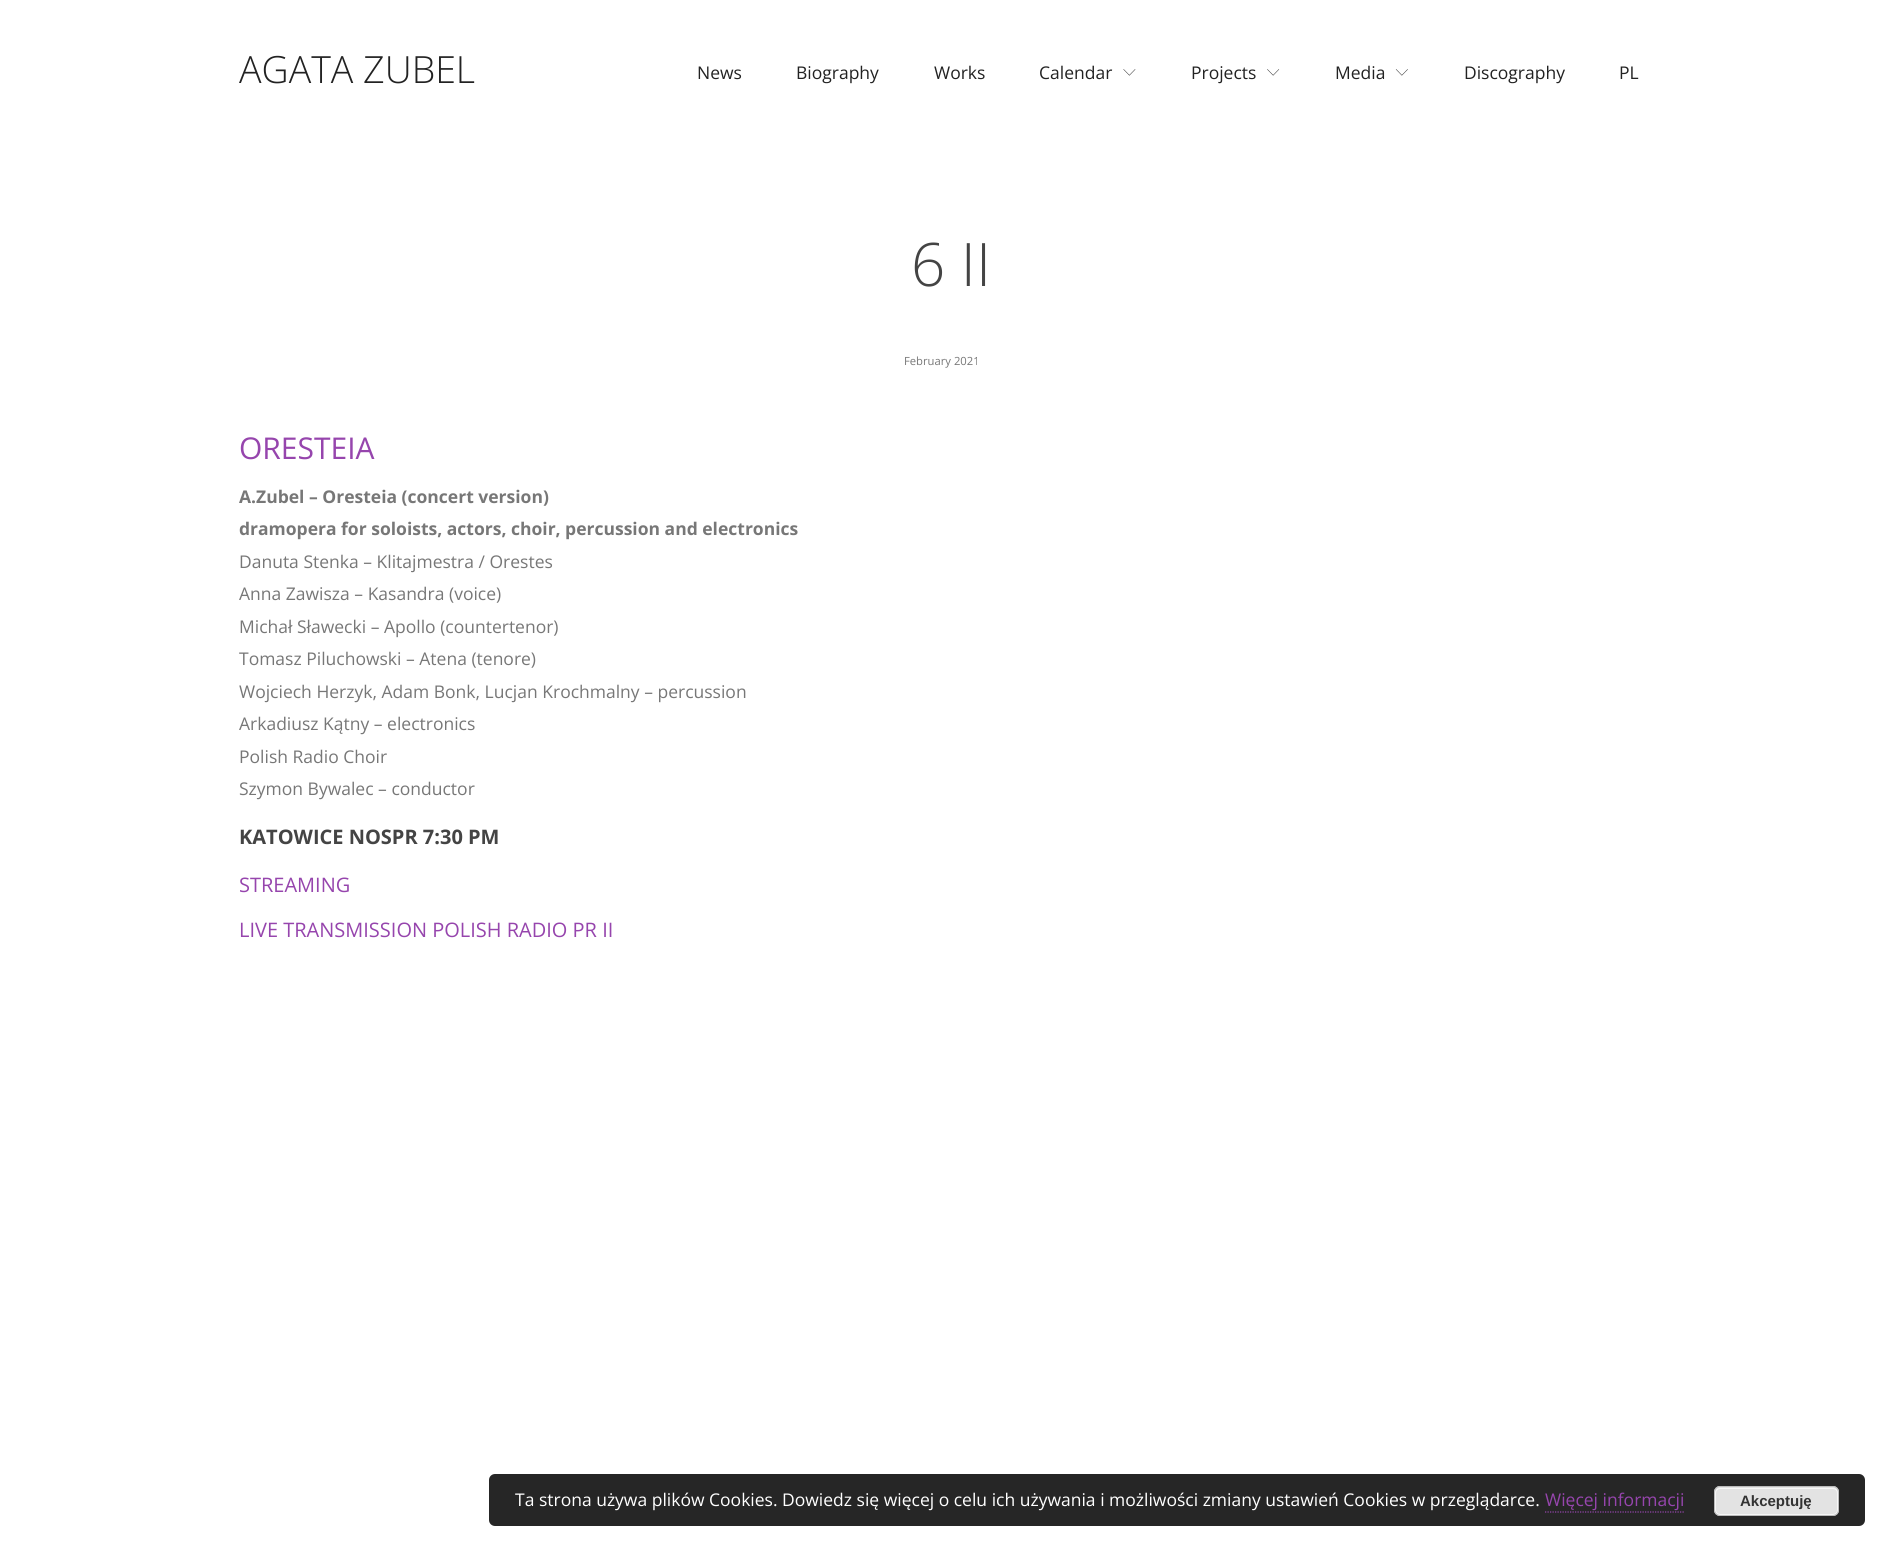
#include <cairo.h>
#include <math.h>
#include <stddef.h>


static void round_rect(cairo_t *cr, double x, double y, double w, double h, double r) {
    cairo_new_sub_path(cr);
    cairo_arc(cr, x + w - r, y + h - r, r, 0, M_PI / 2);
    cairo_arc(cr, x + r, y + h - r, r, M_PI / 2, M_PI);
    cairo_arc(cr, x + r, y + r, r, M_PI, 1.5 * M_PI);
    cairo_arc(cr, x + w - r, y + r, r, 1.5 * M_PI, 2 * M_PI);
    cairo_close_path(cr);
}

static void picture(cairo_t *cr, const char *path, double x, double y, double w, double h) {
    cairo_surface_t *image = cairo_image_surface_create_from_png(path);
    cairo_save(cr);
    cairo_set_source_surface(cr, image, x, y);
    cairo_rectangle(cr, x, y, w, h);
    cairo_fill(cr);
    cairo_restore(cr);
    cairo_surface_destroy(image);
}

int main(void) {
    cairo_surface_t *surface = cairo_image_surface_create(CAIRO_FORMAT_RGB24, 1902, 1563);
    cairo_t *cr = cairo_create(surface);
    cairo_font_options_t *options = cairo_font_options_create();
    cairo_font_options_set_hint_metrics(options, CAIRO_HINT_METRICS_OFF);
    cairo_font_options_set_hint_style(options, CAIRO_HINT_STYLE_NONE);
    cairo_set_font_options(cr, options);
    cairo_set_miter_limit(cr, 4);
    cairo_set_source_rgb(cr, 1, 1, 1);
    cairo_paint(cr);
    cairo_select_font_face(cr, "Open Sans Light", CAIRO_FONT_SLANT_NORMAL, CAIRO_FONT_WEIGHT_NORMAL);
    cairo_set_font_size(cr, 37.5);
    cairo_set_source_rgb(cr, 0.133, 0.133, 0.133);
    cairo_move_to(cr, 239, 83);
    cairo_show_text(cr, "AGATA ZUBEL");
    cairo_select_font_face(cr, "Open Sans", CAIRO_FONT_SLANT_NORMAL, CAIRO_FONT_WEIGHT_NORMAL);
    cairo_set_font_size(cr, 17.5);
    cairo_move_to(cr, 697, 79);
    cairo_show_text(cr, "News");
    cairo_move_to(cr, 796, 79);
    cairo_show_text(cr, "Biography");
    cairo_move_to(cr, 934, 79);
    cairo_show_text(cr, "Works");
    cairo_move_to(cr, 1039, 79);
    cairo_show_text(cr, "Calendar");
    picture(cr, "img1.png", 1123, 69, 13, 7);
    cairo_move_to(cr, 1191, 79);
    cairo_show_text(cr, "Projects");
    picture(cr, "img2.png", 1267, 69, 13, 7);
    cairo_move_to(cr, 1335, 79);
    cairo_show_text(cr, "Media");
    picture(cr, "img3.png", 1395, 69, 13, 7);
    cairo_move_to(cr, 1464, 79);
    cairo_show_text(cr, "Discography");
    cairo_move_to(cr, 1619, 79);
    cairo_show_text(cr, "PL");
    cairo_select_font_face(cr, "Open Sans Light", CAIRO_FONT_SLANT_NORMAL, CAIRO_FONT_WEIGHT_NORMAL);
    cairo_set_font_size(cr, 60);
    cairo_set_source_rgb(cr, 0.267, 0.267, 0.267);
    cairo_move_to(cr, 911, 286);
    cairo_show_text(cr, "6 II");
    cairo_select_font_face(cr, "Open Sans", CAIRO_FONT_SLANT_NORMAL, CAIRO_FONT_WEIGHT_NORMAL);
    cairo_set_font_size(cr, 11.25);
    cairo_set_source_rgb(cr, 0.467, 0.467, 0.467);
    cairo_move_to(cr, 904, 365);
    cairo_show_text(cr, "February 2021");
    cairo_set_font_size(cr, 30);
    cairo_set_source_rgb(cr, 0.588, 0.271, 0.678);
    cairo_move_to(cr, 239, 459);
    cairo_show_text(cr, "ORESTEIA");
    cairo_select_font_face(cr, "Open Sans", CAIRO_FONT_SLANT_NORMAL, CAIRO_FONT_WEIGHT_BOLD);
    cairo_set_font_size(cr, 17.5);
    cairo_set_source_rgb(cr, 0.467, 0.467, 0.467);
    cairo_move_to(cr, 239, 503);
    cairo_show_text(cr, "A.Zubel – Oresteia (concert version)");
    cairo_move_to(cr, 239, 535);
    cairo_show_text(cr, "dramopera for soloists, actors, choir, percussion and electronics");
    cairo_select_font_face(cr, "Open Sans", CAIRO_FONT_SLANT_NORMAL, CAIRO_FONT_WEIGHT_NORMAL);
    cairo_move_to(cr, 239, 568);
    cairo_show_text(cr, "Danuta Stenka – Klitajmestra / Orestes");
    cairo_move_to(cr, 239, 600);
    cairo_show_text(cr, "Anna Zawisza – Kasandra (voice)");
    cairo_move_to(cr, 239, 633);
    cairo_show_text(cr, "Michał Sławecki – Apollo (countertenor)");
    cairo_move_to(cr, 239, 665);
    cairo_show_text(cr, "Tomasz Piluchowski – Atena (tenore)");
    cairo_move_to(cr, 239, 698);
    cairo_show_text(cr, "Wojciech Herzyk, Adam Bonk, Lucjan Krochmalny – percussion");
    cairo_move_to(cr, 239, 730);
    cairo_show_text(cr, "Arkadiusz Kątny – electronics");
    cairo_move_to(cr, 239, 763);
    cairo_show_text(cr, "Polish Radio Choir");
    cairo_move_to(cr, 239, 795);
    cairo_show_text(cr, "Szymon Bywalec – conductor");
    cairo_select_font_face(cr, "Open Sans", CAIRO_FONT_SLANT_NORMAL, CAIRO_FONT_WEIGHT_BOLD);
    cairo_set_font_size(cr, 20);
    cairo_set_source_rgb(cr, 0.267, 0.267, 0.267);
    cairo_move_to(cr, 239, 844);
    cairo_show_text(cr, "KATOWICE NOSPR 7:30 PM");
    cairo_select_font_face(cr, "Open Sans", CAIRO_FONT_SLANT_NORMAL, CAIRO_FONT_WEIGHT_NORMAL);
    cairo_set_source_rgb(cr, 0.588, 0.271, 0.678);
    cairo_move_to(cr, 239, 892);
    cairo_show_text(cr, "STREAMING");
    cairo_move_to(cr, 239, 937);
    cairo_show_text(cr, "LIVE TRANSMISSION POLISH RADIO PR II");
    cairo_set_source_rgb(cr, 0.149, 0.149, 0.149);
    round_rect(cr, 489, 1474, 1376, 52, 6);
    cairo_fill(cr);
    cairo_set_font_size(cr, 17.5);
    cairo_set_source_rgb(cr, 1, 1, 1);
    cairo_move_to(cr, 515, 1506);
    cairo_show_text(cr, "Ta strona używa plików Cookies. Dowiedz się więcej o celu ich używania i możliwości zmiany ustawień Cookies w przeglądarce.");
    cairo_set_source_rgb(cr, 0.588, 0.271, 0.678);
    cairo_move_to(cr, 1545, 1506);
    cairo_show_text(cr, "Więcej informacji");
    cairo_new_path(cr);
    cairo_move_to(cr, 1545, 1512);
    cairo_line_to(cr, 1684, 1512);
    cairo_set_line_width(cr, 1.2);
    cairo_set_dash(cr, (double[]){1.25, 1.25}, 2, 0);
    cairo_stroke(cr);
    cairo_set_source_rgb(cr, 0.89, 0.89, 0.89);
    round_rect(cr, 1714, 1486, 125, 30, 6);
    cairo_fill(cr);
    round_rect(cr, 1715.5, 1488.5, 122, 26, 4.5);
    cairo_set_source_rgb(cr, 0.965, 0.965, 0.965);
    cairo_set_line_width(cr, 1);
    cairo_set_dash(cr, NULL, 0, 0);
    cairo_stroke(cr);
    round_rect(cr, 1714.5, 1486.5, 124, 29, 5.5);
    cairo_set_source_rgb(cr, 0.733, 0.733, 0.733);
    cairo_stroke(cr);
    cairo_select_font_face(cr, "Liberation Sans", CAIRO_FONT_SLANT_NORMAL, CAIRO_FONT_WEIGHT_BOLD);
    cairo_set_font_size(cr, 15);
    cairo_set_source_rgb(cr, 0.2, 0.2, 0.2);
    cairo_move_to(cr, 1740, 1506);
    cairo_show_text(cr, "Akceptuję");
    cairo_surface_write_to_png(surface, "page.png");
    cairo_font_options_destroy(options);
    cairo_destroy(cr);
    cairo_surface_destroy(surface);
    return 0;
}
